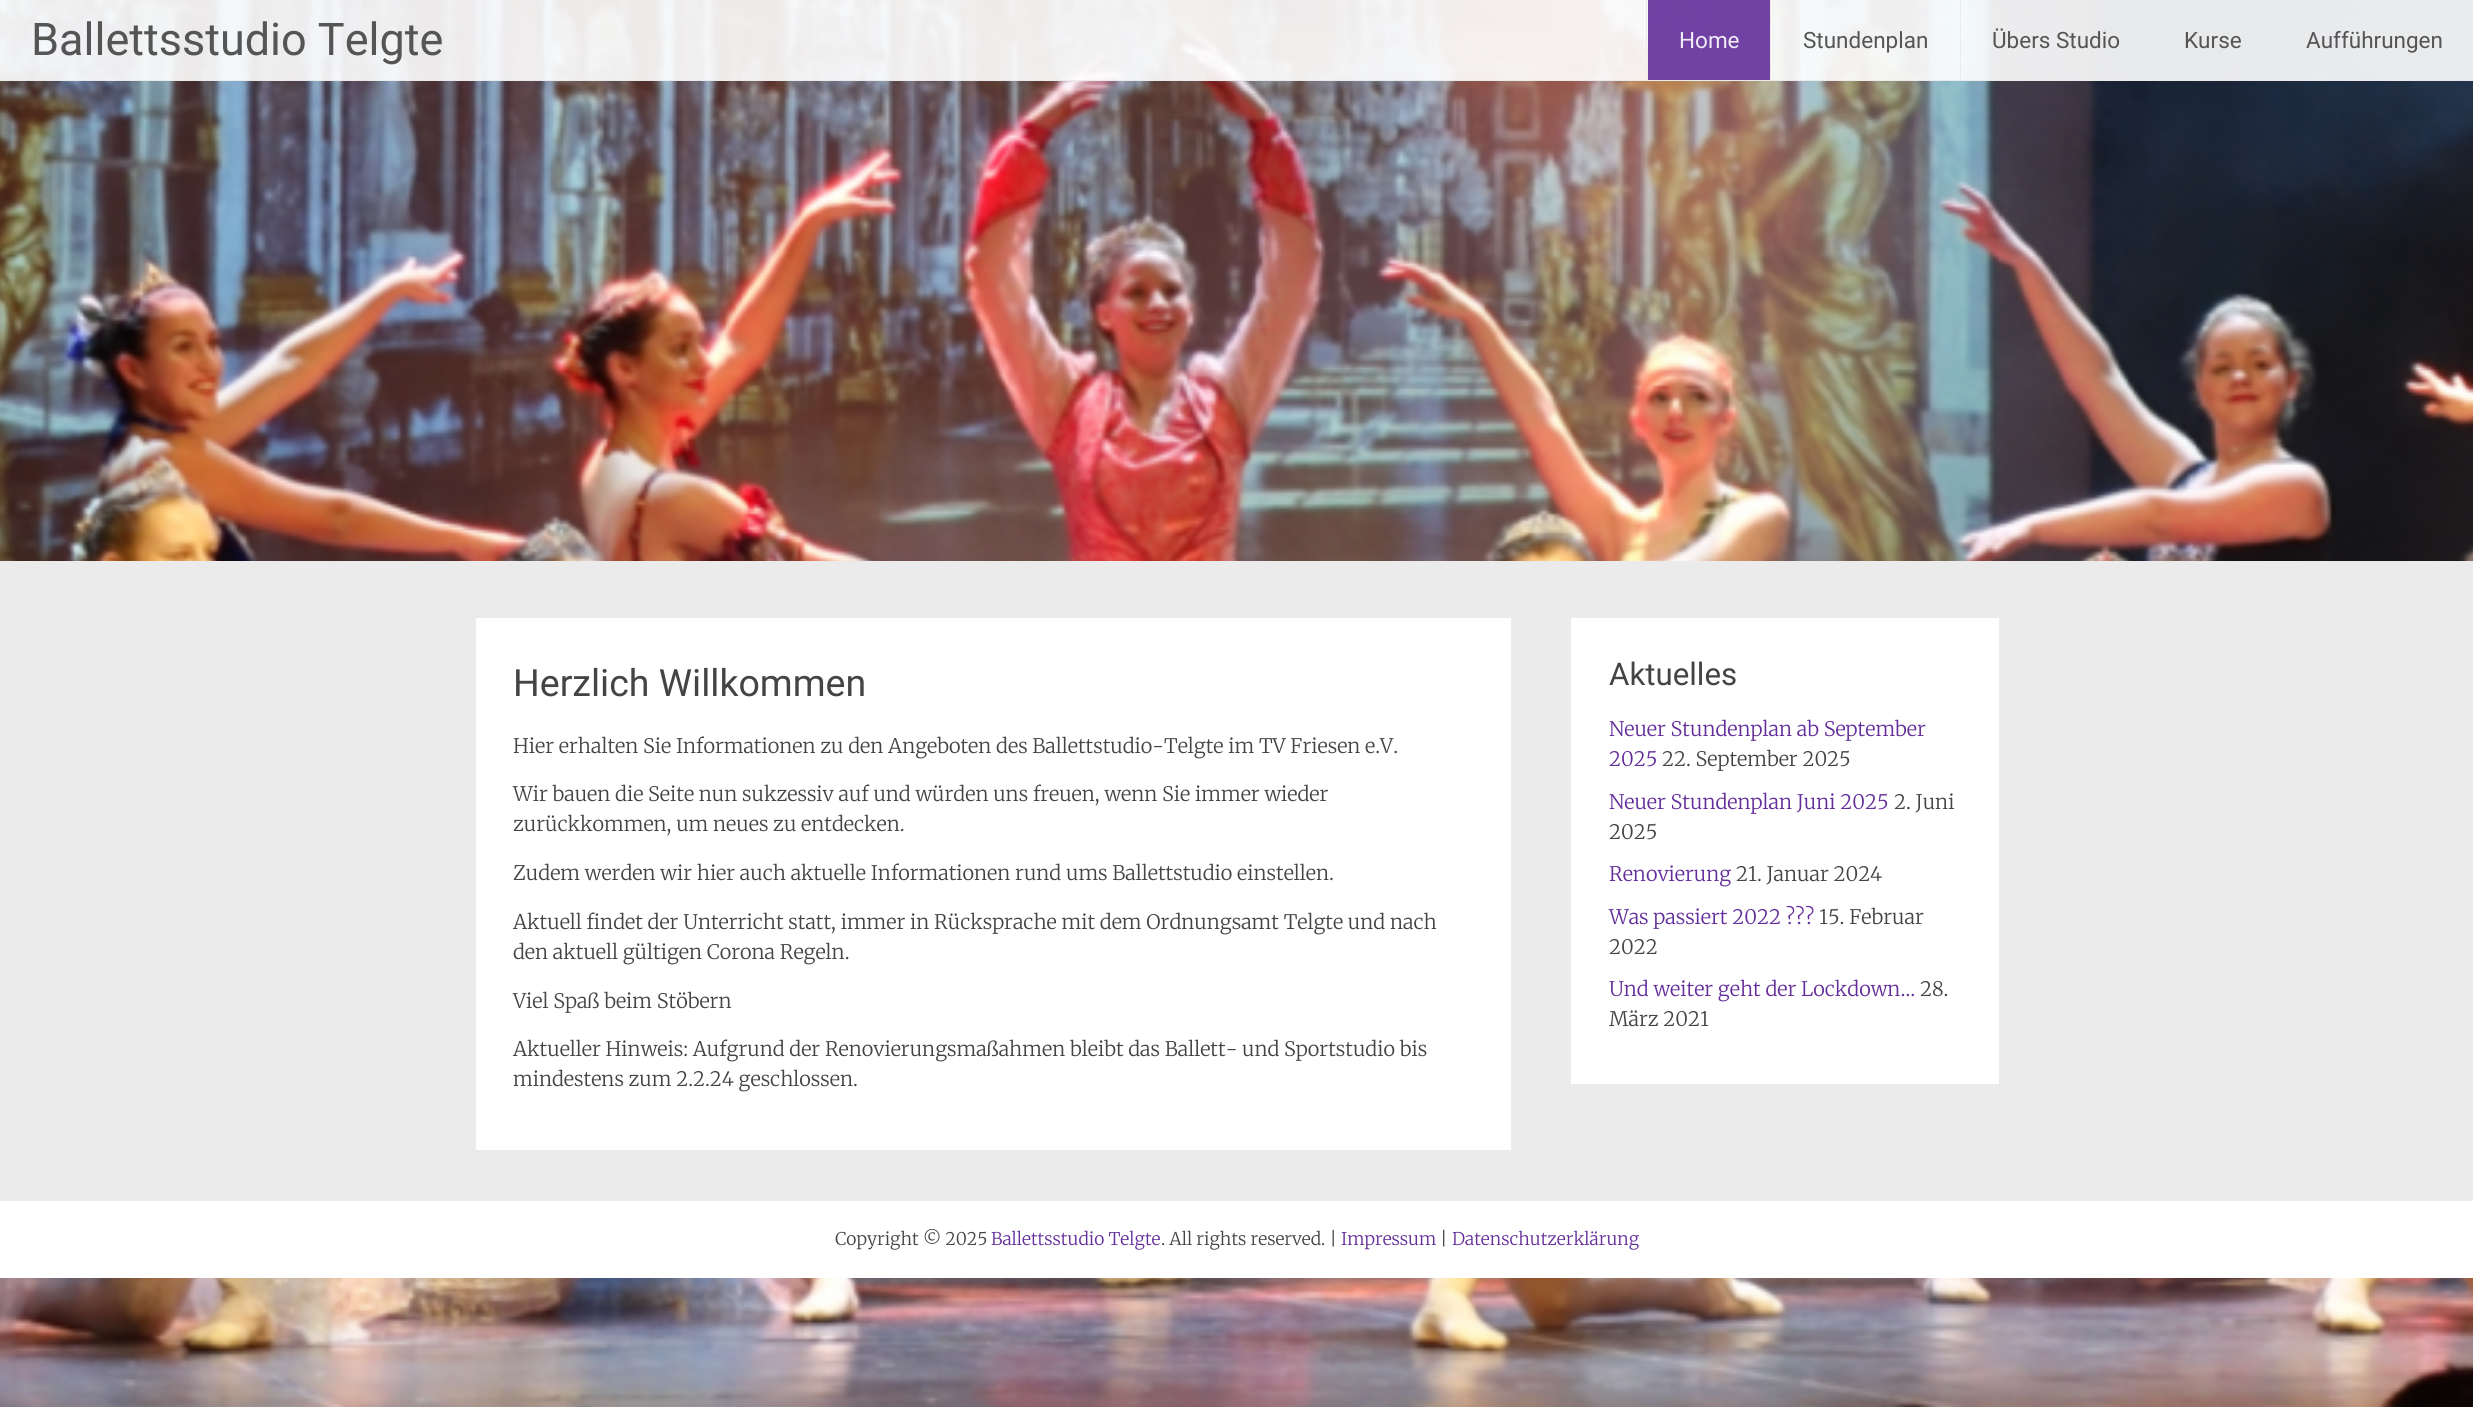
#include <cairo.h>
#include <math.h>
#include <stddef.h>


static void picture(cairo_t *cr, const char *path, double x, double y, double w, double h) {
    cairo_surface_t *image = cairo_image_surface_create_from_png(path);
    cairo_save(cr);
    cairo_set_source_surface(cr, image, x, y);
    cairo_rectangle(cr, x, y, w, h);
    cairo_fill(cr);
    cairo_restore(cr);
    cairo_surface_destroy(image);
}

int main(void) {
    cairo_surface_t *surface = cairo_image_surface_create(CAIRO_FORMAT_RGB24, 2473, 1407);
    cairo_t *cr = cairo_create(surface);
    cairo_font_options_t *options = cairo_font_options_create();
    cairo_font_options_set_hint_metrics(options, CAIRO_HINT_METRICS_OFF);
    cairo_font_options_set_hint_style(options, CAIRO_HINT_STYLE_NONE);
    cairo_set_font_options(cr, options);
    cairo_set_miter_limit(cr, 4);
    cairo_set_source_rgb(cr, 1, 1, 1);
    cairo_paint(cr);
    picture(cr, "img1.png", 0, 0, 2473, 1407);
    cairo_set_source_rgba(cr, 1, 1, 1, 0.9);
    cairo_rectangle(cr, 0, 0, 2473, 81);
    cairo_fill(cr);
    cairo_set_source_rgba(cr, 0.918, 0.918, 0.918, 0.9);
    cairo_rectangle(cr, 0, 80, 2464, 1);
    cairo_fill(cr);
    cairo_select_font_face(cr, "Roboto", CAIRO_FONT_SLANT_NORMAL, CAIRO_FONT_WEIGHT_NORMAL);
    cairo_set_font_size(cr, 45);
    cairo_set_source_rgb(cr, 0.333, 0.333, 0.333);
    cairo_move_to(cr, 31, 55);
    cairo_show_text(cr, "Ballettsstudio Telgte");
    cairo_set_source_rgba(cr, 0.918, 0.918, 0.918, 0.9);
    cairo_rectangle(cr, 1646, 0, 1, 80);
    cairo_fill(cr);
    cairo_set_source_rgba(cr, 0.388, 0.18, 0.608, 0.9);
    cairo_rectangle(cr, 1648, 0, 122, 80);
    cairo_fill(cr);
    cairo_set_font_size(cr, 22.5);
    cairo_set_source_rgb(cr, 0.945, 0.925, 0.965);
    cairo_move_to(cr, 1679, 48);
    cairo_show_text(cr, "Home");
    cairo_set_source_rgba(cr, 0.918, 0.918, 0.918, 0.9);
    cairo_rectangle(cr, 1770, 0, 1, 80);
    cairo_fill(cr);
    cairo_set_source_rgb(cr, 0.333, 0.333, 0.333);
    cairo_move_to(cr, 1803, 48);
    cairo_show_text(cr, "Stundenplan");
    cairo_set_source_rgb(cr, 0.922, 0.922, 0.925);
    cairo_rectangle(cr, 1960, 0, 1, 80);
    cairo_fill(cr);
    cairo_set_source_rgb(cr, 0.333, 0.333, 0.333);
    cairo_move_to(cr, 1992, 48);
    cairo_show_text(cr, "Übers Studio");
    cairo_set_source_rgb(cr, 0.918, 0.918, 0.918);
    cairo_rectangle(cr, 2151, 0, 1, 33);
    cairo_fill(cr);
    cairo_set_source_rgb(cr, 0.333, 0.333, 0.333);
    cairo_move_to(cr, 2184, 48);
    cairo_show_text(cr, "Kurse");
    cairo_move_to(cr, 2306, 48);
    cairo_show_text(cr, "Aufführungen");
    cairo_set_source_rgb(cr, 0.918, 0.918, 0.918);
    cairo_rectangle(cr, 0, 561, 2473, 640);
    cairo_fill(cr);
    cairo_set_source_rgb(cr, 1, 1, 1);
    cairo_rectangle(cr, 476, 618, 1035, 532);
    cairo_fill(cr);
    cairo_set_font_size(cr, 37.5);
    cairo_set_source_rgb(cr, 0.267, 0.267, 0.267);
    cairo_move_to(cr, 513, 696);
    cairo_show_text(cr, "Herzlich Willkommen");
    cairo_select_font_face(cr, "Merriweather Light", CAIRO_FONT_SLANT_NORMAL, CAIRO_FONT_WEIGHT_NORMAL);
    cairo_set_font_size(cr, 20);
    cairo_move_to(cr, 513, 753);
    cairo_show_text(cr, "Hier erhalten Sie Informationen zu den Angeboten des Ballettstudio-Telgte im TV Friesen e.V.");
    cairo_move_to(cr, 513, 801);
    cairo_show_text(cr, "Wir bauen die Seite nun sukzessiv auf und würden uns freuen, wenn Sie immer wieder");
    cairo_move_to(cr, 513, 831);
    cairo_show_text(cr, "zurückkommen, um neues zu entdecken.");
    cairo_move_to(cr, 513, 880);
    cairo_show_text(cr, "Zudem werden wir hier auch aktuelle Informationen rund ums Ballettstudio einstellen.");
    cairo_move_to(cr, 513, 929);
    cairo_show_text(cr, "Aktuell findet der Unterricht statt, immer in Rücksprache mit dem Ordnungsamt Telgte und nach");
    cairo_move_to(cr, 513, 959);
    cairo_show_text(cr, "den aktuell gültigen Corona Regeln.");
    cairo_move_to(cr, 513, 1008);
    cairo_show_text(cr, "Viel Spaß beim Stöbern");
    cairo_move_to(cr, 513, 1056);
    cairo_show_text(cr, "Aktueller Hinweis: Aufgrund der Renovierungsmaßahmen bleibt das Ballett- und Sportstudio bis");
    cairo_move_to(cr, 513, 1086);
    cairo_show_text(cr, "mindestens zum 2.2.24 geschlossen.");
    cairo_set_source_rgb(cr, 1, 1, 1);
    cairo_rectangle(cr, 1571, 618, 428, 466);
    cairo_fill(cr);
    cairo_select_font_face(cr, "Roboto", CAIRO_FONT_SLANT_NORMAL, CAIRO_FONT_WEIGHT_NORMAL);
    cairo_set_font_size(cr, 31.25);
    cairo_set_source_rgb(cr, 0.267, 0.267, 0.267);
    cairo_move_to(cr, 1609, 685);
    cairo_show_text(cr, "Aktuelles");
    cairo_select_font_face(cr, "Merriweather Light", CAIRO_FONT_SLANT_NORMAL, CAIRO_FONT_WEIGHT_NORMAL);
    cairo_set_font_size(cr, 20);
    cairo_set_source_rgb(cr, 0.388, 0.18, 0.608);
    cairo_move_to(cr, 1609, 736);
    cairo_show_text(cr, "Neuer Stundenplan ab September");
    cairo_move_to(cr, 1609, 766);
    cairo_show_text(cr, "2025");
    cairo_set_source_rgb(cr, 0.267, 0.267, 0.267);
    cairo_move_to(cr, 1662, 766);
    cairo_show_text(cr, "22. September 2025");
    cairo_set_source_rgb(cr, 0.388, 0.18, 0.608);
    cairo_move_to(cr, 1609, 809);
    cairo_show_text(cr, "Neuer Stundenplan Juni 2025");
    cairo_set_source_rgb(cr, 0.267, 0.267, 0.267);
    cairo_move_to(cr, 1894, 809);
    cairo_show_text(cr, "2. Juni");
    cairo_move_to(cr, 1609, 839);
    cairo_show_text(cr, "2025");
    cairo_set_source_rgb(cr, 0.388, 0.18, 0.608);
    cairo_move_to(cr, 1609, 881);
    cairo_show_text(cr, "Renovierung");
    cairo_set_source_rgb(cr, 0.267, 0.267, 0.267);
    cairo_move_to(cr, 1736, 881);
    cairo_show_text(cr, "21. Januar 2024");
    cairo_set_source_rgb(cr, 0.388, 0.18, 0.608);
    cairo_move_to(cr, 1609, 924);
    cairo_show_text(cr, "Was passiert 2022 ?\077?");
    cairo_set_source_rgb(cr, 0.267, 0.267, 0.267);
    cairo_move_to(cr, 1819, 924);
    cairo_show_text(cr, "15. Februar");
    cairo_move_to(cr, 1609, 954);
    cairo_show_text(cr, "2022");
    cairo_set_source_rgb(cr, 0.388, 0.18, 0.608);
    cairo_move_to(cr, 1609, 996);
    cairo_show_text(cr, "Und weiter geht der Lockdown…");
    cairo_set_source_rgb(cr, 0.267, 0.267, 0.267);
    cairo_move_to(cr, 1920, 996);
    cairo_show_text(cr, "28.");
    cairo_move_to(cr, 1609, 1026);
    cairo_show_text(cr, "März 2021");
    cairo_set_source_rgb(cr, 1, 1, 1);
    cairo_rectangle(cr, 0, 1201, 2473, 77);
    cairo_fill(cr);
    cairo_set_font_size(cr, 17.5);
    cairo_set_source_rgb(cr, 0.267, 0.267, 0.267);
    cairo_move_to(cr, 835, 1245);
    cairo_show_text(cr, "Copyright © 2025");
    cairo_set_source_rgb(cr, 0.388, 0.18, 0.608);
    cairo_move_to(cr, 991, 1245);
    cairo_show_text(cr, "Ballettsstudio Telgte");
    cairo_set_source_rgb(cr, 0.267, 0.267, 0.267);
    cairo_move_to(cr, 1161, 1245);
    cairo_show_text(cr, ". All rights reserved. |");
    cairo_set_source_rgb(cr, 0.388, 0.18, 0.608);
    cairo_move_to(cr, 1341, 1245);
    cairo_show_text(cr, "Impressum");
    cairo_set_source_rgb(cr, 0.267, 0.267, 0.267);
    cairo_move_to(cr, 1440, 1245);
    cairo_show_text(cr, "|");
    cairo_set_source_rgb(cr, 0.388, 0.18, 0.608);
    cairo_move_to(cr, 1452, 1245);
    cairo_show_text(cr, "Datenschutzerklärung");
    cairo_surface_write_to_png(surface, "page.png");
    cairo_font_options_destroy(options);
    cairo_destroy(cr);
    cairo_surface_destroy(surface);
    return 0;
}
